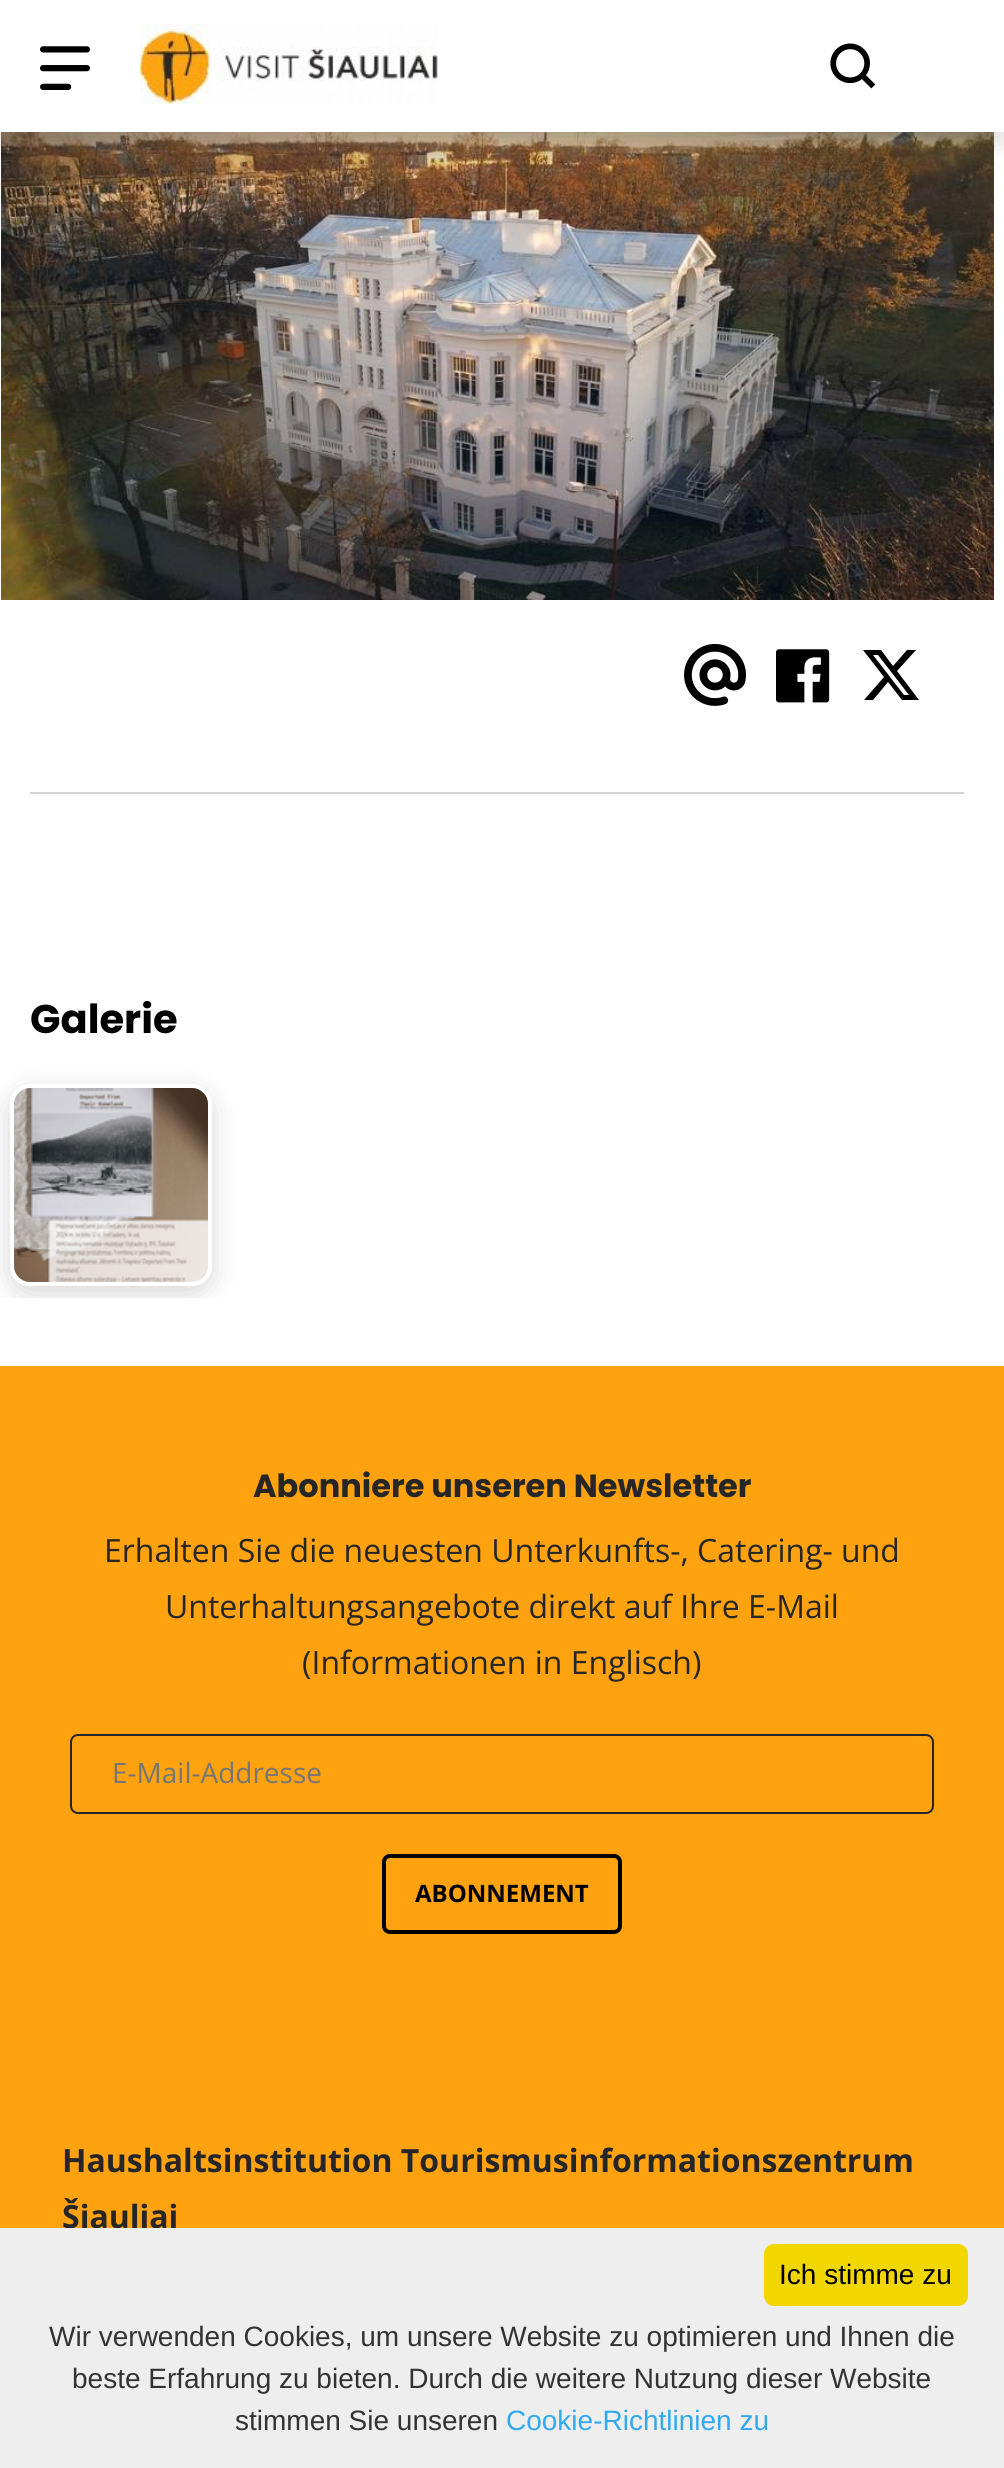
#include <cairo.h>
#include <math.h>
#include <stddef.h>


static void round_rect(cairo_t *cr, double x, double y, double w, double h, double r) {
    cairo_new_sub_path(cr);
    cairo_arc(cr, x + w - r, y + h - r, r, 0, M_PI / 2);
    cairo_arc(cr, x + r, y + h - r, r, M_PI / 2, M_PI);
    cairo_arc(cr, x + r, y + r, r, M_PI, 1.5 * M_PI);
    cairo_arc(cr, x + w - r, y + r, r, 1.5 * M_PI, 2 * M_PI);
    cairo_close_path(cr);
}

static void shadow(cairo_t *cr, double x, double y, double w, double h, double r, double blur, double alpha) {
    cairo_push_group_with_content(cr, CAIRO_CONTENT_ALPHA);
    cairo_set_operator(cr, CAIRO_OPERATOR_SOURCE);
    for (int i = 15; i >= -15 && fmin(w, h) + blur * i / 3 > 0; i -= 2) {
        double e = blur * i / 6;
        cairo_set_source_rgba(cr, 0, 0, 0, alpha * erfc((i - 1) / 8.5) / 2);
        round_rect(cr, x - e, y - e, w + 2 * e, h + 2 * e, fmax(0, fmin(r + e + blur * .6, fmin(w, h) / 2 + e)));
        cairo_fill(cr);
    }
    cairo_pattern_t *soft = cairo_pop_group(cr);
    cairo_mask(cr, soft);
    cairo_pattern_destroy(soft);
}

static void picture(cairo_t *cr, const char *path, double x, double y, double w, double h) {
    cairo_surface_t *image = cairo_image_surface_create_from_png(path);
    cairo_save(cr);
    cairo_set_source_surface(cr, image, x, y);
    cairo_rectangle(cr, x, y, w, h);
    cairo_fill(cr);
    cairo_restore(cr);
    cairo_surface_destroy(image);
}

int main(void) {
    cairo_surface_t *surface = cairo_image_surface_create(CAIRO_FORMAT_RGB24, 1004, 2468);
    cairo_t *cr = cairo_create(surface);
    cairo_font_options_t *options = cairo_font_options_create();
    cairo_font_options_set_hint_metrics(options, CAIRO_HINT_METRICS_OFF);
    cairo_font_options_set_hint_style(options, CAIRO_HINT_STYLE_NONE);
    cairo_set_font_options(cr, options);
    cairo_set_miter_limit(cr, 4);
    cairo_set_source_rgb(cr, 1, 1, 1);
    cairo_paint(cr);
    picture(cr, "img4.png", 1, 132, 993, 468);
    cairo_save(cr);
    cairo_rectangle(cr, 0, 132, 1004, 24);
    cairo_clip(cr);
    cairo_set_source_rgb(cr, 0, 0, 0);
    shadow(cr, 0, 8, 1004, 132, 0, 14, 0.16);
    cairo_restore(cr);
    picture(cr, "img1.png", 40, 46, 50, 44);
    picture(cr, "img2.png", 140, 24, 298, 80);
    picture(cr, "img3.png", 830, 43, 46, 46);
    picture(cr, "img5.png", 684, 643, 62, 63);
    picture(cr, "img6.png", 776, 649, 54, 54);
    cairo_set_source_rgb(cr, 0, 0, 0);
    cairo_new_path(cr);
    cairo_move_to(cr, 907, 650);
    cairo_line_to(cr, 916, 650);
    cairo_line_to(cr, 897, 671);
    cairo_line_to(cr, 919, 700);
    cairo_line_to(cr, 902, 700);
    cairo_line_to(cr, 888, 682);
    cairo_line_to(cr, 873, 700);
    cairo_line_to(cr, 864, 700);
    cairo_line_to(cr, 884, 677);
    cairo_line_to(cr, 863, 650);
    cairo_line_to(cr, 881, 650);
    cairo_line_to(cr, 893, 666);
    cairo_close_path(cr);
    cairo_move_to(cr, 904, 695);
    cairo_line_to(cr, 909, 695);
    cairo_line_to(cr, 878, 655);
    cairo_line_to(cr, 873, 655);
    cairo_close_path(cr);
    cairo_fill(cr);
    cairo_set_source_rgb(cr, 0.831, 0.831, 0.831);
    cairo_rectangle(cr, 30, 792, 934, 2);
    cairo_fill(cr);
    cairo_select_font_face(cr, "Poppins", CAIRO_FONT_SLANT_NORMAL, CAIRO_FONT_WEIGHT_BOLD);
    cairo_set_font_size(cr, 40);
    cairo_set_source_rgb(cr, 0, 0, 0);
    cairo_move_to(cr, 30, 1033);
    cairo_show_text(cr, "Galerie");
    cairo_save(cr);
    cairo_rectangle(cr, 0, 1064, 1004, 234);
    cairo_clip(cr);
    cairo_set_fill_rule(cr, CAIRO_FILL_RULE_EVEN_ODD);
    cairo_new_path(cr);
    cairo_move_to(cr, 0, 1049);
    cairo_line_to(cr, 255, 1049);
    cairo_line_to(cr, 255, 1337);
    cairo_line_to(cr, 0, 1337);
    cairo_close_path(cr);
    cairo_move_to(cr, 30, 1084);
    cairo_line_to(cr, 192, 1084);
    cairo_curve_to(cr, 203, 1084, 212, 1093, 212, 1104);
    cairo_line_to(cr, 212, 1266);
    cairo_curve_to(cr, 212, 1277, 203, 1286, 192, 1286);
    cairo_line_to(cr, 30, 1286);
    cairo_curve_to(cr, 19, 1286, 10, 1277, 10, 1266);
    cairo_line_to(cr, 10, 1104);
    cairo_curve_to(cr, 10, 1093, 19, 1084, 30, 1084);
    cairo_close_path(cr);
    cairo_clip(cr);
    cairo_set_source_rgb(cr, 0, 0, 0);
    shadow(cr, 10, 1092, 202, 202, 20, 14, 0.16);
    cairo_restore(cr);
    picture(cr, "img7.png", 14, 1088, 194, 194);
    cairo_set_source_rgb(cr, 1, 0.635, 0.059);
    cairo_rectangle(cr, 0, 1366, 1004, 862);
    cairo_fill(cr);
    cairo_set_font_size(cr, 32);
    cairo_set_source_rgb(cr, 0.149, 0.149, 0.149);
    cairo_move_to(cr, 253, 1497);
    cairo_show_text(cr, "Abonniere unseren Newsletter");
    cairo_select_font_face(cr, "Open Sans", CAIRO_FONT_SLANT_NORMAL, CAIRO_FONT_WEIGHT_NORMAL);
    cairo_move_to(cr, 104, 1562);
    cairo_show_text(cr, "Erhalten Sie die neuesten Unterkunfts-, Catering- und");
    cairo_move_to(cr, 165, 1618);
    cairo_show_text(cr, "Unterhaltungsangebote direkt auf Ihre E-Mail");
    cairo_move_to(cr, 302, 1674);
    cairo_show_text(cr, "(Informationen in Englisch)");
    round_rect(cr, 71, 1735, 862, 78, 7);
    cairo_stroke(cr);
    cairo_set_font_size(cr, 28);
    cairo_set_source_rgb(cr, 0.459, 0.459, 0.459);
    cairo_move_to(cr, 112, 1783);
    cairo_show_text(cr, "E-Mail-Addresse");
    round_rect(cr, 384, 1856, 236, 76, 6);
    cairo_set_source_rgb(cr, 0, 0, 0);
    cairo_set_line_width(cr, 4);
    cairo_stroke(cr);
    cairo_select_font_face(cr, "Open Sans", CAIRO_FONT_SLANT_NORMAL, CAIRO_FONT_WEIGHT_BOLD);
    cairo_set_font_size(cr, 24);
    cairo_move_to(cr, 415, 1902);
    cairo_show_text(cr, "ABONNEMENT");
    cairo_set_font_size(cr, 32);
    cairo_set_source_rgb(cr, 0.149, 0.149, 0.149);
    cairo_move_to(cr, 62, 2172);
    cairo_show_text(cr, "Haushaltsinstitution Tourismusinformationszentrum");
    cairo_move_to(cr, 62, 2228);
    cairo_show_text(cr, "Šiauliai");
    cairo_set_source_rgb(cr, 0.933, 0.933, 0.933);
    cairo_rectangle(cr, 0, 2228, 1004, 240);
    cairo_fill(cr);
    cairo_set_source_rgb(cr, 0.945, 0.839, 0);
    round_rect(cr, 764, 2244, 204, 62, 10);
    cairo_fill(cr);
    cairo_select_font_face(cr, "Liberation Sans", CAIRO_FONT_SLANT_NORMAL, CAIRO_FONT_WEIGHT_NORMAL);
    cairo_set_font_size(cr, 28);
    cairo_set_source_rgb(cr, 0, 0, 0);
    cairo_move_to(cr, 779, 2284);
    cairo_show_text(cr, "Ich stimme zu");
    cairo_set_source_rgb(cr, 0.2, 0.2, 0.2);
    cairo_move_to(cr, 49, 2346);
    cairo_show_text(cr, "Wir verwenden Cookies, um unsere Website zu optimieren und Ihnen die");
    cairo_move_to(cr, 72, 2388);
    cairo_show_text(cr, "beste Erfahrung zu bieten. Durch die weitere Nutzung dieser Website");
    cairo_move_to(cr, 235, 2430);
    cairo_show_text(cr, "stimmen Sie unseren");
    cairo_set_source_rgb(cr, 0.192, 0.659, 0.941);
    cairo_move_to(cr, 506, 2430);
    cairo_show_text(cr, "Cookie-Richtlinien zu");
    cairo_surface_write_to_png(surface, "page.png");
    cairo_font_options_destroy(options);
    cairo_destroy(cr);
    cairo_surface_destroy(surface);
    return 0;
}
